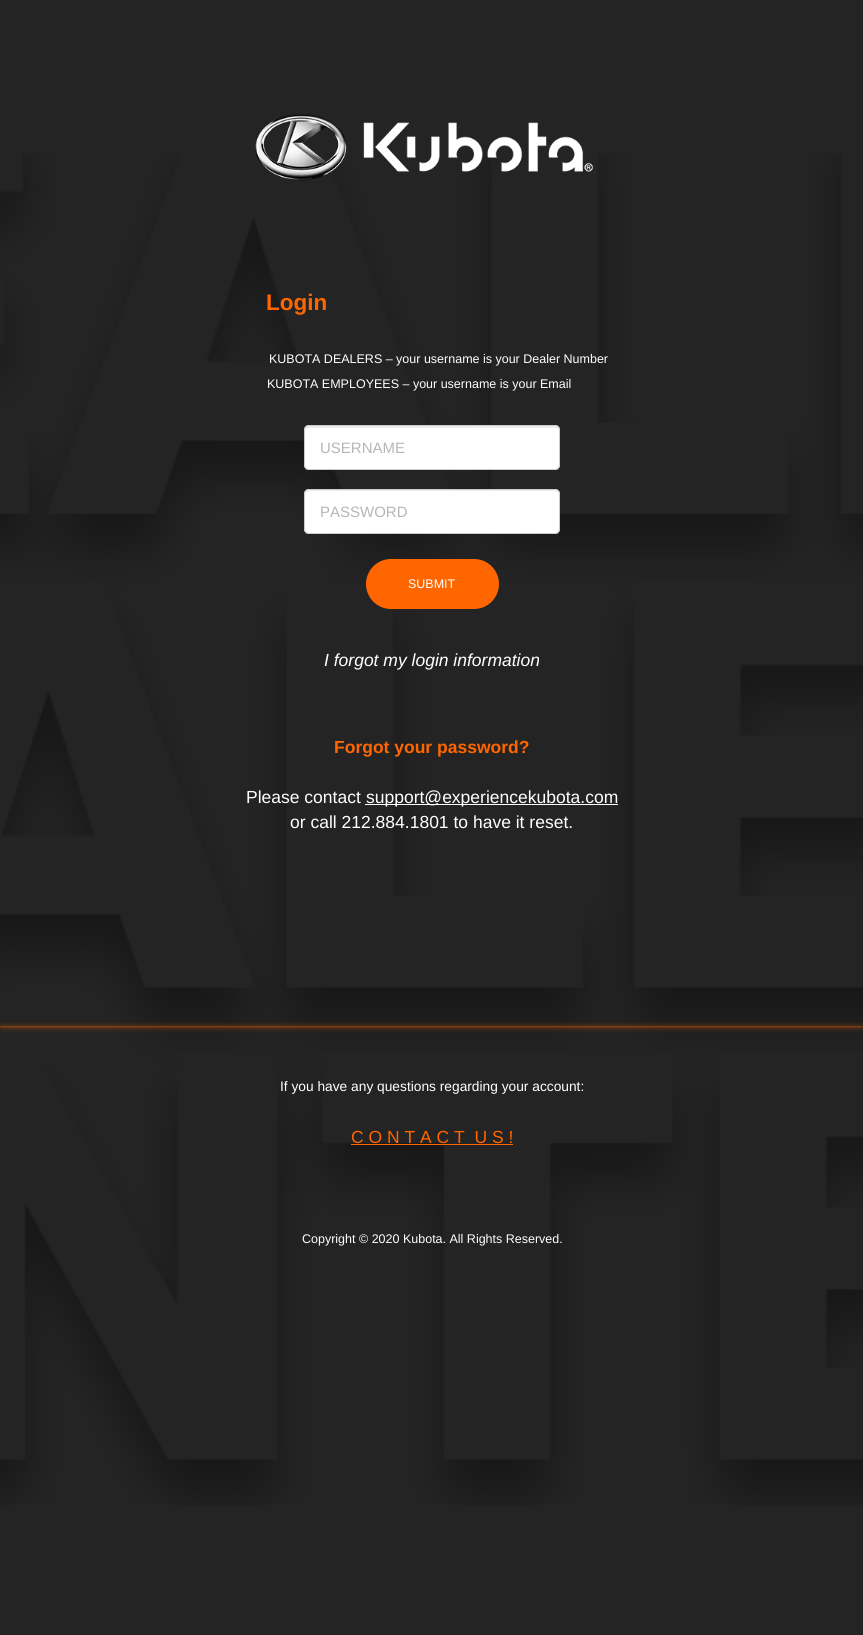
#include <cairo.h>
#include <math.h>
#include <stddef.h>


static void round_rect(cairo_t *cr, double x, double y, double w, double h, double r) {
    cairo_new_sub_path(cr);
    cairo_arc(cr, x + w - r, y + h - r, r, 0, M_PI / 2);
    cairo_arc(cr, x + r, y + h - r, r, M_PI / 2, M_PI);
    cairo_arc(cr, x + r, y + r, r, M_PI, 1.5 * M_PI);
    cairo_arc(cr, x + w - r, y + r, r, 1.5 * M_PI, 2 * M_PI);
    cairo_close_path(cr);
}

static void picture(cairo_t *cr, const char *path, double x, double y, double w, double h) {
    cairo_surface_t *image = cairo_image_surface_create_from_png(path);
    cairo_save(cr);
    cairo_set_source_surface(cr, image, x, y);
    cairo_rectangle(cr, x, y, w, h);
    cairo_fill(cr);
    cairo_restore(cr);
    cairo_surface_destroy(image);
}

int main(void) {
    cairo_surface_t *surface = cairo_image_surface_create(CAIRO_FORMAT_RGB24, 863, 1635);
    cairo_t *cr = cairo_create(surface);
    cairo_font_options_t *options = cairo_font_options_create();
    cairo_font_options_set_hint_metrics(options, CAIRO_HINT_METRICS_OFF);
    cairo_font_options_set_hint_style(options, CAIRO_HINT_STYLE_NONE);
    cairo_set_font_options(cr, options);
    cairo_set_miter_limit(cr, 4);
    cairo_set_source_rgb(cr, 0.141, 0.141, 0.141);
    cairo_paint(cr);
    picture(cr, "img1.png", 0, 153, 863, 1352);
    picture(cr, "img2.png", 255, 114, 338, 67);
    cairo_select_font_face(cr, "Liberation Sans", CAIRO_FONT_SLANT_NORMAL, CAIRO_FONT_WEIGHT_BOLD);
    cairo_set_font_size(cr, 22.5);
    cairo_set_source_rgb(cr, 1, 0.4, 0);
    cairo_move_to(cr, 266, 310);
    cairo_show_text(cr, "Login");
    cairo_select_font_face(cr, "Liberation Sans", CAIRO_FONT_SLANT_NORMAL, CAIRO_FONT_WEIGHT_NORMAL);
    cairo_set_font_size(cr, 12.5);
    cairo_set_source_rgb(cr, 1, 1, 1);
    cairo_move_to(cr, 269, 363);
    cairo_show_text(cr, "KUBOTA DEALERS – your username is your Dealer Number");
    cairo_move_to(cr, 267, 388);
    cairo_show_text(cr, "KUBOTA EMPLOYEES – your username is your Email");
    round_rect(cr, 304, 425, 256, 45, 5);
    cairo_fill(cr);
    cairo_set_source_rgb(cr, 0.925, 0.925, 0.925);
    cairo_new_path(cr);
    cairo_move_to(cr, 309, 428);
    cairo_line_to(cr, 555, 428);
    cairo_curve_to(cr, 557, 428, 559, 429, 559, 431);
    cairo_line_to(cr, 559, 430);
    cairo_curve_to(cr, 559, 428, 557, 426, 555, 426);
    cairo_line_to(cr, 309, 426);
    cairo_curve_to(cr, 307, 426, 305, 428, 305, 430);
    cairo_line_to(cr, 305, 431);
    cairo_curve_to(cr, 305, 429, 307, 428, 309, 428);
    cairo_close_path(cr);
    cairo_fill(cr);
    round_rect(cr, 304.5, 425.5, 255, 44, 4.5);
    cairo_set_source_rgb(cr, 0.8, 0.8, 0.8);
    cairo_set_line_width(cr, 1);
    cairo_stroke(cr);
    cairo_set_font_size(cr, 15);
    cairo_set_source_rgb(cr, 0.714, 0.714, 0.714);
    cairo_move_to(cr, 320, 453);
    cairo_show_text(cr, "USERNAME");
    cairo_set_source_rgb(cr, 1, 1, 1);
    round_rect(cr, 304, 489, 256, 45, 5);
    cairo_fill(cr);
    cairo_set_source_rgb(cr, 0.925, 0.925, 0.925);
    cairo_new_path(cr);
    cairo_move_to(cr, 309, 491);
    cairo_line_to(cr, 555, 491);
    cairo_curve_to(cr, 557, 491, 559, 493, 559, 495);
    cairo_line_to(cr, 559, 494);
    cairo_curve_to(cr, 559, 492, 557, 490, 555, 490);
    cairo_line_to(cr, 309, 490);
    cairo_curve_to(cr, 307, 490, 305, 492, 305, 494);
    cairo_line_to(cr, 305, 495);
    cairo_curve_to(cr, 305, 493, 307, 491, 309, 491);
    cairo_close_path(cr);
    cairo_fill(cr);
    round_rect(cr, 304.5, 489.5, 255, 44, 4.5);
    cairo_set_source_rgb(cr, 0.8, 0.8, 0.8);
    cairo_stroke(cr);
    cairo_set_source_rgb(cr, 0.714, 0.714, 0.714);
    cairo_move_to(cr, 320, 517);
    cairo_show_text(cr, "PASSWORD");
    cairo_set_source_rgb(cr, 1, 0.4, 0);
    round_rect(cr, 366, 559, 133, 50, 25);
    cairo_fill(cr);
    cairo_set_font_size(cr, 12.5);
    cairo_set_source_rgb(cr, 1, 1, 1);
    cairo_move_to(cr, 408, 588);
    cairo_show_text(cr, "SUBMIT");
    cairo_select_font_face(cr, "Liberation Sans", CAIRO_FONT_SLANT_ITALIC, CAIRO_FONT_WEIGHT_NORMAL);
    cairo_set_font_size(cr, 17.5);
    cairo_move_to(cr, 324, 666);
    cairo_show_text(cr, "I forgot my login information");
    cairo_select_font_face(cr, "Liberation Sans", CAIRO_FONT_SLANT_NORMAL, CAIRO_FONT_WEIGHT_BOLD);
    cairo_set_source_rgb(cr, 1, 0.4, 0);
    cairo_move_to(cr, 334, 753);
    cairo_show_text(cr, "Forgot your password?");
    cairo_select_font_face(cr, "Liberation Sans", CAIRO_FONT_SLANT_NORMAL, CAIRO_FONT_WEIGHT_NORMAL);
    cairo_set_source_rgb(cr, 1, 1, 1);
    cairo_move_to(cr, 246, 803);
    cairo_show_text(cr, "Please contact");
    cairo_rectangle(cr, 365, 804, 253, 1);
    cairo_fill(cr);
    cairo_move_to(cr, 366, 803);
    cairo_show_text(cr, "support@experiencekubota.com");
    cairo_move_to(cr, 290, 828);
    cairo_show_text(cr, "or call 212.884.1801 to have it reset.");
    picture(cr, "img3.png", 0, 1022, 863, 10);
    cairo_set_font_size(cr, 13.75);
    cairo_move_to(cr, 280, 1091);
    cairo_show_text(cr, "If you have any questions regarding your account:");
    cairo_set_font_size(cr, 17.5);
    cairo_set_source_rgb(cr, 1, 0.4, 0);
    cairo_move_to(cr, 351, 1143);
    cairo_show_text(cr, "C O N T A C T  U S !");
    cairo_rectangle(cr, 351, 1144, 162, 1);
    cairo_fill(cr);
    cairo_set_font_size(cr, 12.5);
    cairo_set_source_rgb(cr, 1, 1, 1);
    cairo_move_to(cr, 302, 1243);
    cairo_show_text(cr, "Copyright © 2020 Kubota. All Rights Reserved.");
    cairo_surface_write_to_png(surface, "page.png");
    cairo_font_options_destroy(options);
    cairo_destroy(cr);
    cairo_surface_destroy(surface);
    return 0;
}
